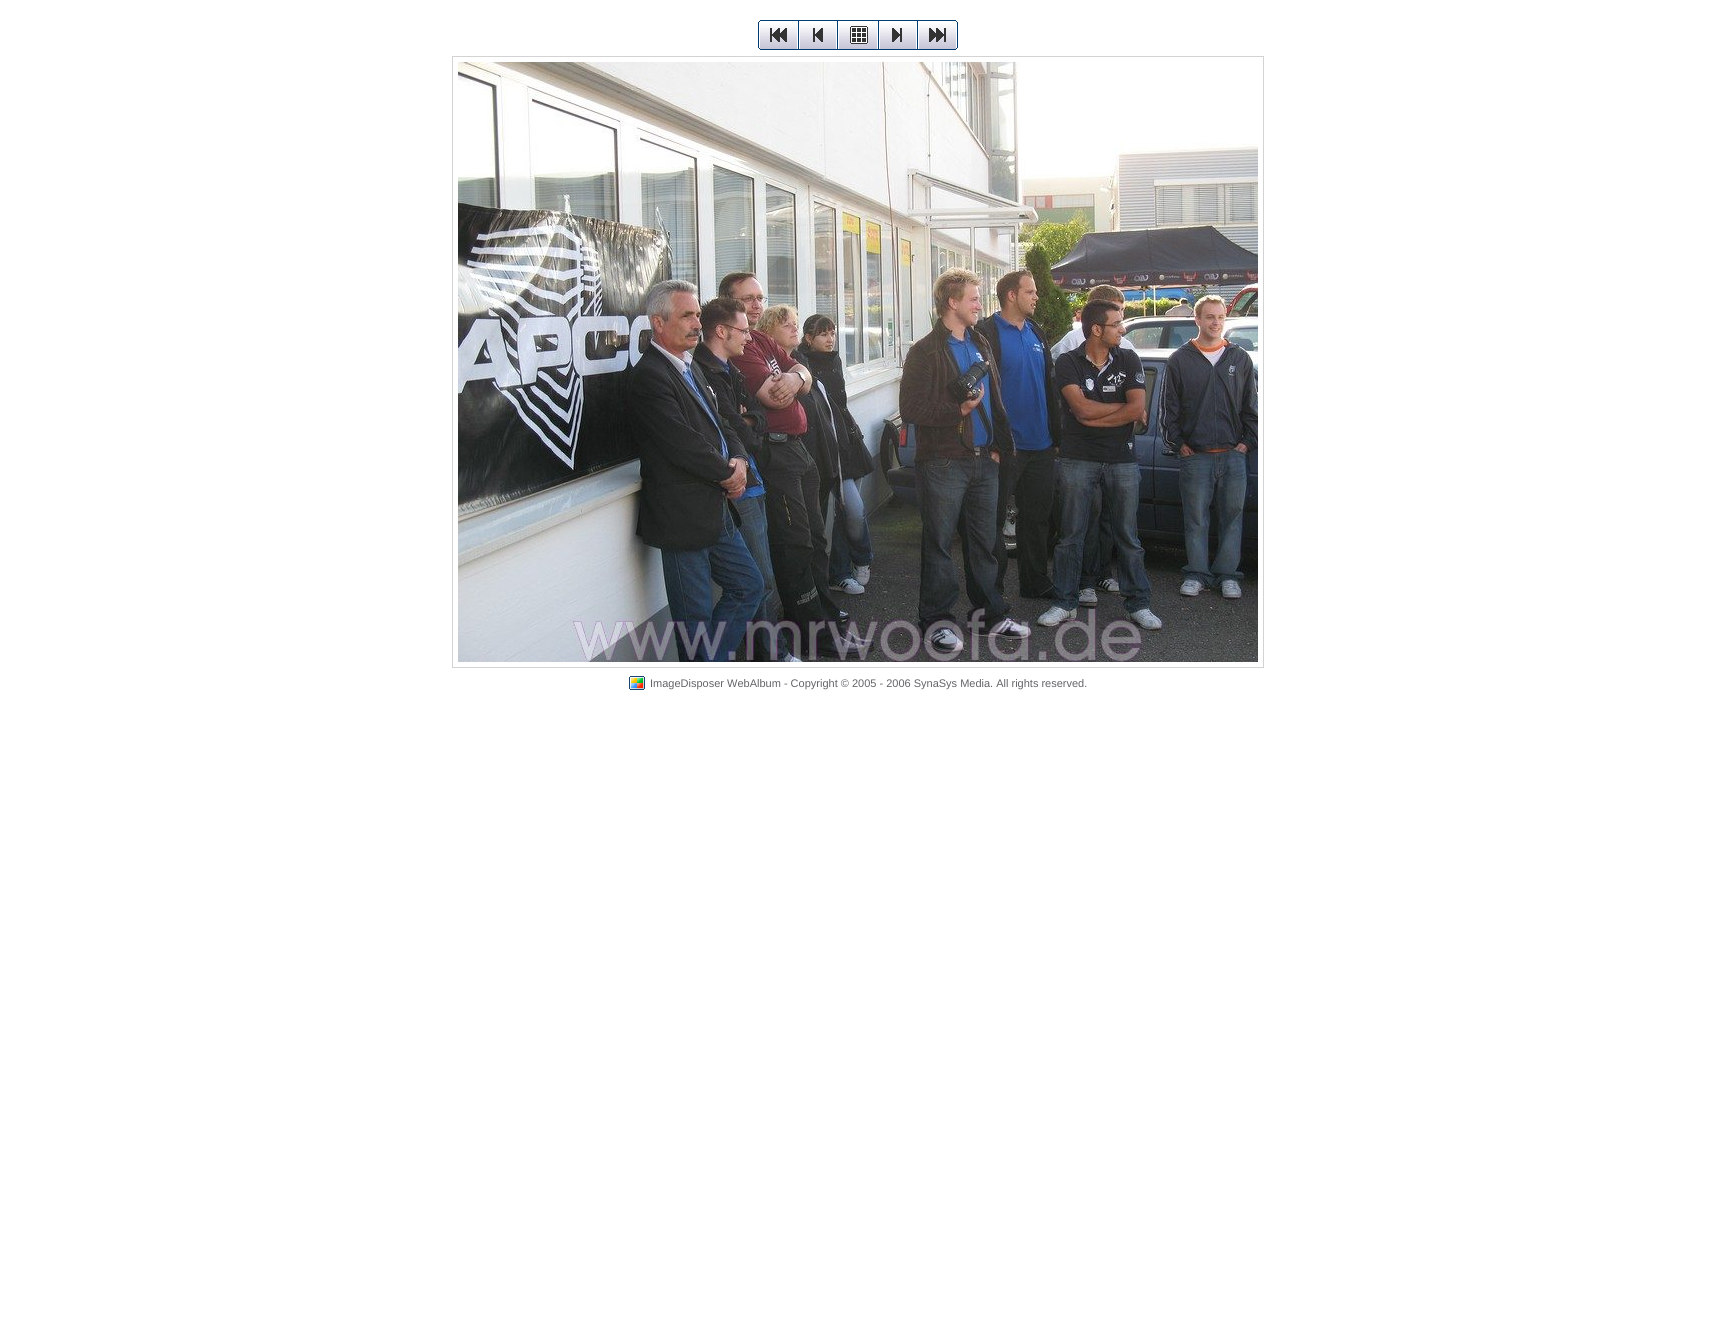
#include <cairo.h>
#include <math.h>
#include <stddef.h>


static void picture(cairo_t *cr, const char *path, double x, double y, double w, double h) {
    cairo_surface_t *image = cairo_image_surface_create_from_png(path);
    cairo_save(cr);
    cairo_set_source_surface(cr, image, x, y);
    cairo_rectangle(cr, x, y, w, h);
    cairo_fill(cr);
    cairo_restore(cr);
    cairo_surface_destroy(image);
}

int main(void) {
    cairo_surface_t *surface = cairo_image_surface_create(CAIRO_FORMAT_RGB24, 1716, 1340);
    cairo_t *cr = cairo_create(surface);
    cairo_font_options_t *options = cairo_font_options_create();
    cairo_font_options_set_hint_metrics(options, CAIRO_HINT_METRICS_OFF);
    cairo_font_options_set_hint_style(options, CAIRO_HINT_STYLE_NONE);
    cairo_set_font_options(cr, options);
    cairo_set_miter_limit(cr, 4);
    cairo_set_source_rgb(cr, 1, 1, 1);
    cairo_paint(cr);
    picture(cr, "img1.png", 758, 20, 40, 30);
    picture(cr, "img2.png", 798, 20, 40, 30);
    picture(cr, "img3.png", 838, 20, 40, 30);
    picture(cr, "img4.png", 878, 20, 40, 30);
    picture(cr, "img5.png", 918, 20, 40, 30);
    cairo_rectangle(cr, 452.5, 56.5, 811, 611);
    cairo_set_source_rgb(cr, 0.827, 0.827, 0.827);
    cairo_set_line_width(cr, 1);
    cairo_stroke(cr);
    picture(cr, "img6.png", 458, 62, 800, 600);
    picture(cr, "img7.png", 629, 676, 16, 14);
    cairo_select_font_face(cr, "Liberation Sans", CAIRO_FONT_SLANT_NORMAL, CAIRO_FONT_WEIGHT_NORMAL);
    cairo_set_font_size(cr, 11);
    cairo_set_source_rgb(cr, 0.388, 0.392, 0.404);
    cairo_move_to(cr, 650, 687);
    cairo_show_text(cr, "ImageDisposer WebAlbum - Copyright © 2005 - 2006 SynaSys Media. All rights reserved.");
    cairo_surface_write_to_png(surface, "page.png");
    cairo_font_options_destroy(options);
    cairo_destroy(cr);
    cairo_surface_destroy(surface);
    return 0;
}
